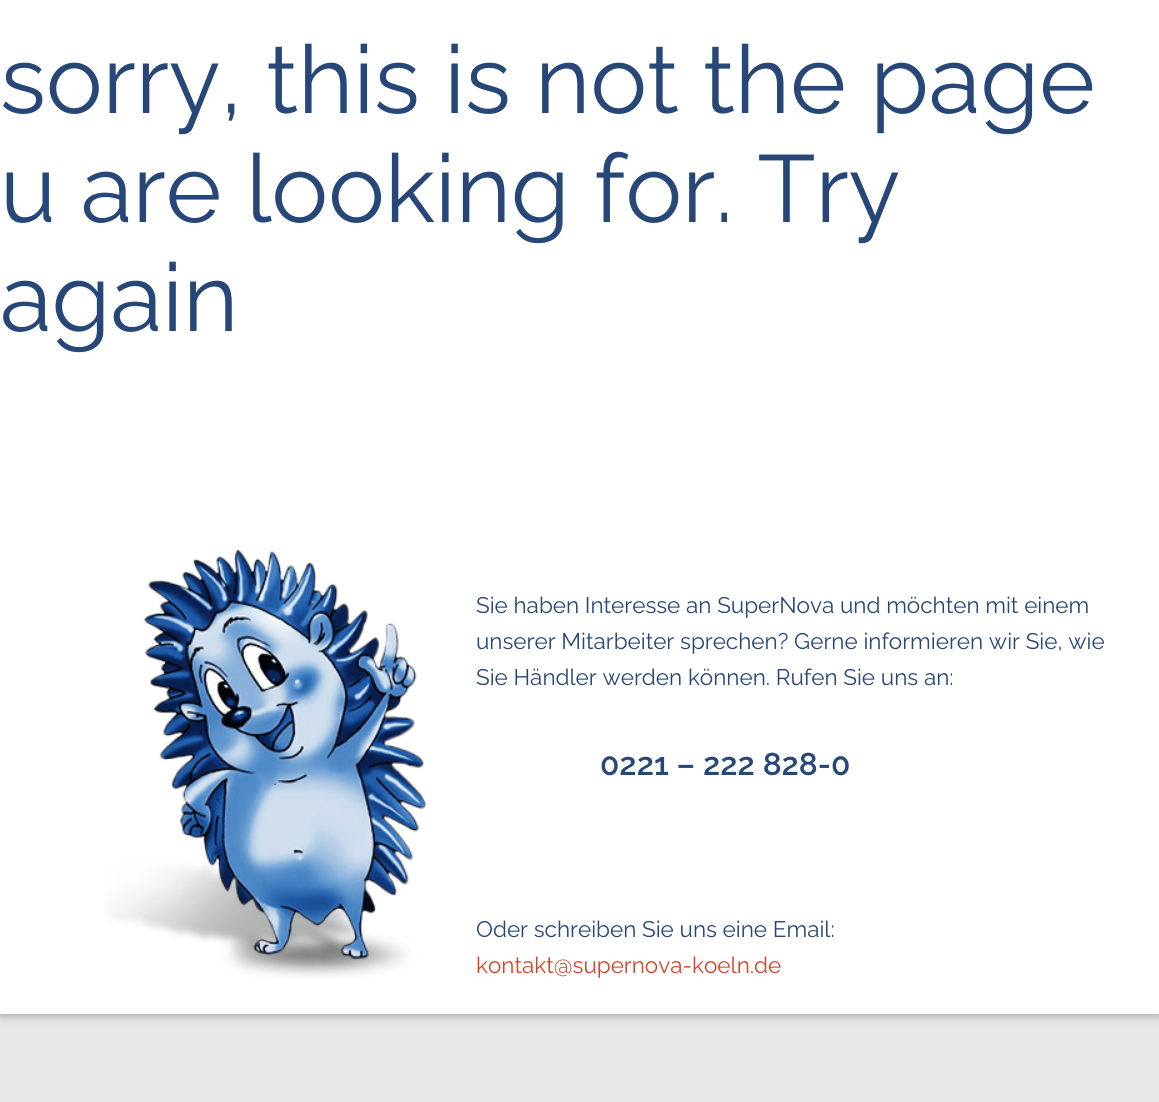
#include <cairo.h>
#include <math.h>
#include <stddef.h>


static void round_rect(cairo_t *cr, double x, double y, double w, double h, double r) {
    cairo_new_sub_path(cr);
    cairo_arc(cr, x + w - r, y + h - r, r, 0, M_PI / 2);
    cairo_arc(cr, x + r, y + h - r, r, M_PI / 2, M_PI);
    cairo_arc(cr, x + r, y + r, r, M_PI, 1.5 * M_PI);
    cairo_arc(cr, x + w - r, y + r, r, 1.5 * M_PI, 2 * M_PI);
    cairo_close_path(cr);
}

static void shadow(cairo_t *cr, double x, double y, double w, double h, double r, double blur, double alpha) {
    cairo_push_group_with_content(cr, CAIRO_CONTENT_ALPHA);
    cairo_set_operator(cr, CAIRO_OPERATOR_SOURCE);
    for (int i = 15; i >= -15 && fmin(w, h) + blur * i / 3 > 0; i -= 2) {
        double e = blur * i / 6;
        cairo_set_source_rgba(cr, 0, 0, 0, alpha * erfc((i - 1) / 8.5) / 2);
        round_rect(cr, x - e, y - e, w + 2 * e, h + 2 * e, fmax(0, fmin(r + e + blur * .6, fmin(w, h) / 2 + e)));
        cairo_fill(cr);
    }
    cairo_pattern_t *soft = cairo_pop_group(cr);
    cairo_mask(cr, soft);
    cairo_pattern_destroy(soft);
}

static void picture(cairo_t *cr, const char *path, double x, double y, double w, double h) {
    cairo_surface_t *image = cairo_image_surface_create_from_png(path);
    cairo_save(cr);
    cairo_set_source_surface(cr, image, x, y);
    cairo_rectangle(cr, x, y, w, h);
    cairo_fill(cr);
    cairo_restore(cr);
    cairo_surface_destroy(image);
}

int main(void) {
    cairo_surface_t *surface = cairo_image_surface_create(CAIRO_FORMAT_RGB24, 1159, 1102);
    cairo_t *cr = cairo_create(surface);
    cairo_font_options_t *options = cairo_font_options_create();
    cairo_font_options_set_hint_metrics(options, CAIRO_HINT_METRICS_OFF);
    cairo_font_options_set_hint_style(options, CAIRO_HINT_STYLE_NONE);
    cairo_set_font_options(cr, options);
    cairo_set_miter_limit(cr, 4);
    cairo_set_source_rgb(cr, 0.906, 0.906, 0.906);
    cairo_paint(cr);
    cairo_set_source_rgb(cr, 0, 0, 0);
    shadow(cr, 0, 1, 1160, 1014, 0, 5, 0.33);
    cairo_set_source_rgb(cr, 1, 1, 1);
    cairo_rectangle(cr, 0, 0, 1159, 1014);
    cairo_fill(cr);
    cairo_select_font_face(cr, "Raleway Thin", CAIRO_FONT_SLANT_NORMAL, CAIRO_FONT_WEIGHT_NORMAL);
    cairo_set_font_size(cr, 95);
    cairo_set_source_rgb(cr, 0.149, 0.278, 0.467);
    cairo_move_to(cr, 0, 113);
    cairo_show_text(cr, "sorry, this is not the page");
    cairo_move_to(cr, 0, 222);
    cairo_show_text(cr, "u are looking for. Try");
    cairo_move_to(cr, 0, 331);
    cairo_show_text(cr, "again");
    picture(cr, "img1.png", 104, 550, 323, 428);
    cairo_set_font_size(cr, 22.5);
    cairo_move_to(cr, 476, 613);
    cairo_show_text(cr, "Sie haben Interesse an SuperNova und möchten mit einem");
    cairo_move_to(cr, 476, 649);
    cairo_show_text(cr, "unserer Mitarbeiter sprechen? Gerne informieren wir Sie, wie");
    cairo_move_to(cr, 476, 685);
    cairo_show_text(cr, "Sie Händler werden können. Rufen Sie uns an:");
    cairo_select_font_face(cr, "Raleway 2 Thin", CAIRO_FONT_SLANT_NORMAL, CAIRO_FONT_WEIGHT_NORMAL);
    cairo_set_font_size(cr, 31.5);
    cairo_move_to(cr, 600, 775);
    cairo_show_text(cr, "0221 – 222 828-0");
    cairo_select_font_face(cr, "Raleway Thin", CAIRO_FONT_SLANT_NORMAL, CAIRO_FONT_WEIGHT_NORMAL);
    cairo_set_font_size(cr, 22.5);
    cairo_move_to(cr, 476, 937);
    cairo_show_text(cr, "Oder schreiben Sie uns eine Email:");
    cairo_set_source_rgb(cr, 0.816, 0.271, 0.149);
    cairo_move_to(cr, 476, 973);
    cairo_show_text(cr, "kontakt@supernova-koeln.de");
    cairo_surface_write_to_png(surface, "page.png");
    cairo_font_options_destroy(options);
    cairo_destroy(cr);
    cairo_surface_destroy(surface);
    return 0;
}
